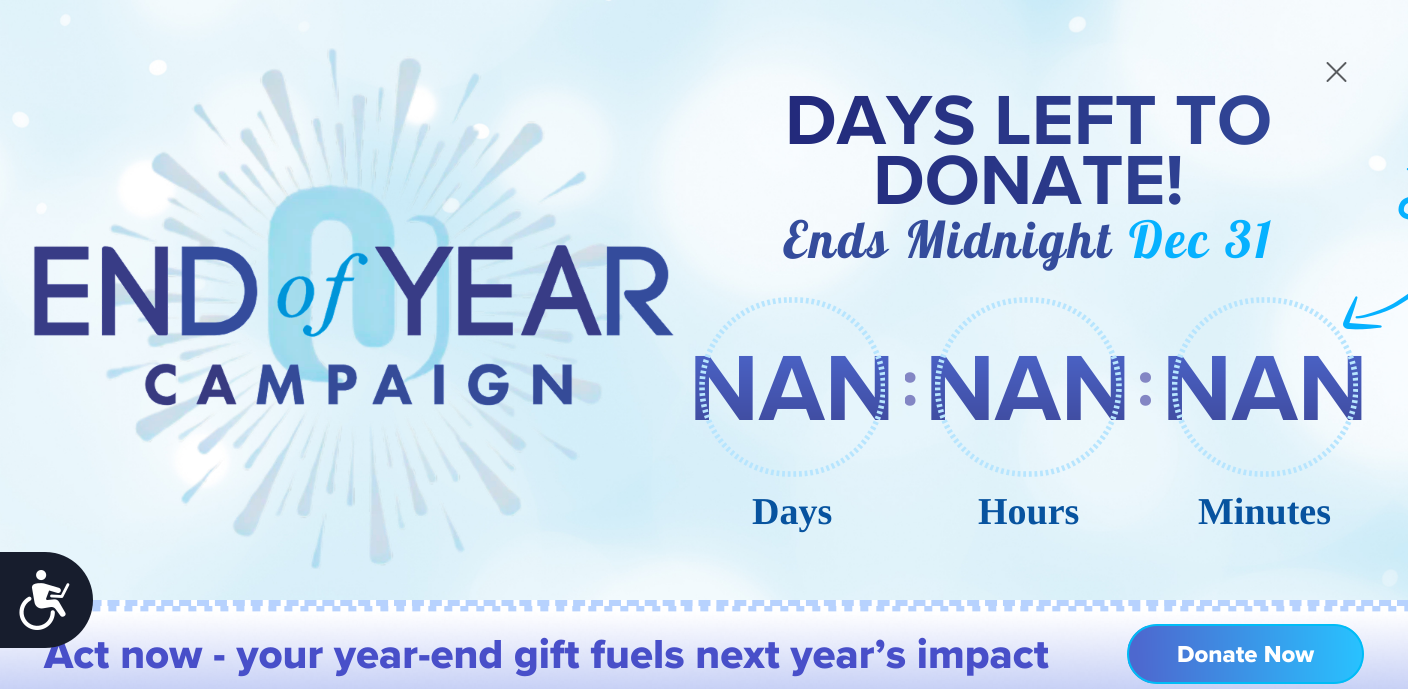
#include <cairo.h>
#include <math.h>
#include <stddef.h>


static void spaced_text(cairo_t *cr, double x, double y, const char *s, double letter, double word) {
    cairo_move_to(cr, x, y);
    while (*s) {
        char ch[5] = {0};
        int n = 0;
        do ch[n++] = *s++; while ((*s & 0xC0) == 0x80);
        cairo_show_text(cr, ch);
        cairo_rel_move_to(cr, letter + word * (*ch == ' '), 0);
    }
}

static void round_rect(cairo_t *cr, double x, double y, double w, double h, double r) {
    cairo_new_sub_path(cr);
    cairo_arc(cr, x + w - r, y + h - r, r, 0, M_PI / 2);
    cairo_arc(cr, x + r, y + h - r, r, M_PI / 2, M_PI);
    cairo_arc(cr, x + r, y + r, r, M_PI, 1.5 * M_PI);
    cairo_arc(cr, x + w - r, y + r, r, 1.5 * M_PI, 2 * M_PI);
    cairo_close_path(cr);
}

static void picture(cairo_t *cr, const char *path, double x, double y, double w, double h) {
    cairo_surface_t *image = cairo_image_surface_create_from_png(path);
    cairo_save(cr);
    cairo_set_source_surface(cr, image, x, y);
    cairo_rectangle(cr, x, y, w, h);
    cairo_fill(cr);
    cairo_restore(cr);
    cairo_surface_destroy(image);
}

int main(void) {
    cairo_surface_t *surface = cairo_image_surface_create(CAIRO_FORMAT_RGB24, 1408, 689);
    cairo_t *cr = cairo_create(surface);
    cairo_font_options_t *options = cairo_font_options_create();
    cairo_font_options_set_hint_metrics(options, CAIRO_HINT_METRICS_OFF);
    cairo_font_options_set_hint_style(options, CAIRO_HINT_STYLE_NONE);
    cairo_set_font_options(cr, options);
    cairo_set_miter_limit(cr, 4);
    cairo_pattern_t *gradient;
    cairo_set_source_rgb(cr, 1, 1, 1);
    cairo_paint(cr);
    picture(cr, "img1.png", 0, 0, 1408, 600);
    cairo_new_path(cr);
    cairo_move_to(cr, 1327.5, 63);
    cairo_line_to(cr, 1345.5, 81);
    cairo_move_to(cr, 1327.5, 81);
    cairo_line_to(cr, 1345.5, 63);
    cairo_set_source_rgb(cr, 0.349, 0.361, 0.373);
    cairo_set_line_cap(cr, CAIRO_LINE_CAP_ROUND);
    cairo_set_line_join(cr, CAIRO_LINE_JOIN_ROUND);
    cairo_stroke(cr);
    picture(cr, "img2.png", 33, 48, 641, 521);
    cairo_select_font_face(cr, "Proxima Nova", CAIRO_FONT_SLANT_NORMAL, CAIRO_FONT_WEIGHT_BOLD);
    cairo_set_font_size(cr, 72);
    gradient = cairo_pattern_create_linear(678, 150, 1379, 150);
    cairo_pattern_add_color_stop_rgba(gradient, 0, 0.122, 0.137, 0.459, 1);
    cairo_pattern_add_color_stop_rgba(gradient, 1, 0.204, 0.298, 0.612, 1);
    cairo_set_source(cr, gradient);
    cairo_pattern_destroy(gradient);
    cairo_move_to(cr, 785, 144);
    cairo_show_text(cr, "DAYS LEFT TO");
    cairo_move_to(cr, 873, 204);
    cairo_show_text(cr, "DONATE!");
    cairo_select_font_face(cr, "Galada", CAIRO_FONT_SLANT_NORMAL, CAIRO_FONT_WEIGHT_NORMAL);
    cairo_set_font_size(cr, 51);
    cairo_set_source_rgb(cr, 0.204, 0.298, 0.612);
    spaced_text(cr, 783, 258, "Ends Midnight", 3, 0);
    cairo_set_source_rgb(cr, 0.024, 0.694, 1);
    spaced_text(cr, 1129, 258, "Dec 31", 3, 0);
    cairo_select_font_face(cr, "Proxima Nova", CAIRO_FONT_SLANT_NORMAL, CAIRO_FONT_WEIGHT_BOLD);
    cairo_set_font_size(cr, 96);
    gradient = cairo_pattern_create_linear(1265, 297, 1265, 477);
    cairo_pattern_add_color_stop_rgba(gradient, 0, 0.322, 0.451, 0.882, 1);
    cairo_pattern_add_color_stop_rgba(gradient, 1, 0.22, 0.235, 0.525, 1);
    cairo_set_source(cr, gradient);
    cairo_pattern_destroy(gradient);
    cairo_move_to(cr, 1162, 420);
    cairo_show_text(cr, "NAN");
    cairo_save(cr);
    cairo_rectangle(cr, 1172, 297, 186, 180);
    cairo_clip(cr);
    cairo_new_path(cr);
    cairo_move_to(cr, 1261.5, 300);
    cairo_line_to(cr, 1268.5, 300);
    cairo_curve_to(cr, 1317, 300, 1356, 339, 1356, 387);
    cairo_curve_to(cr, 1356, 435, 1317, 474, 1268.5, 474);
    cairo_line_to(cr, 1261.5, 474);
    cairo_curve_to(cr, 1213.5, 474, 1174.5, 435, 1174.5, 387);
    cairo_curve_to(cr, 1174.5, 339, 1213.5, 300, 1261.5, 300);
    cairo_close_path(cr);
    cairo_set_source_rgb(cr, 0.718, 0.898, 0.996);
    cairo_set_line_width(cr, 5.6);
    cairo_set_line_cap(cr, CAIRO_LINE_CAP_BUTT);
    cairo_set_dash(cr, (double[]){2.81, 2.81}, 2, 0);
    cairo_stroke(cr);
    cairo_restore(cr);
    picture(cr, "img3.png", 1343, 168, 65, 162);
    gradient = cairo_pattern_create_linear(792, 297, 792, 477);
    cairo_pattern_add_color_stop_rgba(gradient, 0, 0.322, 0.451, 0.882, 1);
    cairo_pattern_add_color_stop_rgba(gradient, 1, 0.22, 0.235, 0.525, 1);
    cairo_set_source(cr, gradient);
    cairo_pattern_destroy(gradient);
    cairo_move_to(cr, 689, 420);
    cairo_show_text(cr, "NAN");
    cairo_save(cr);
    cairo_rectangle(cr, 699, 297, 186, 180);
    cairo_clip(cr);
    cairo_new_path(cr);
    cairo_move_to(cr, 789, 300);
    cairo_line_to(cr, 796, 300);
    cairo_curve_to(cr, 844.5, 300, 883.5, 339, 883.5, 387);
    cairo_curve_to(cr, 883.5, 435, 844.5, 474, 796, 474);
    cairo_line_to(cr, 789, 474);
    cairo_curve_to(cr, 741, 474, 702, 435, 702, 387);
    cairo_curve_to(cr, 702, 339, 741, 300, 789, 300);
    cairo_close_path(cr);
    cairo_set_source_rgb(cr, 0.718, 0.898, 0.996);
    cairo_set_line_width(cr, 5.6);
    cairo_set_line_cap(cr, CAIRO_LINE_CAP_BUTT);
    cairo_set_dash(cr, (double[]){2.81, 2.81}, 2, 0);
    cairo_stroke(cr);
    cairo_restore(cr);
    cairo_select_font_face(cr, "Liberation Serif", CAIRO_FONT_SLANT_NORMAL, CAIRO_FONT_WEIGHT_BOLD);
    cairo_set_font_size(cr, 38);
    cairo_set_source_rgb(cr, 0.031, 0.325, 0.624);
    cairo_move_to(cr, 752, 524);
    cairo_show_text(cr, "Days");
    cairo_save(cr);
    cairo_rectangle(cr, 905, 372, 12, 35);
    cairo_clip(cr);
    cairo_set_source_rgb(cr, 0.514, 0.525, 0.769);
    cairo_new_path(cr);
    cairo_move_to(cr, 904.5, 377.5);
    cairo_curve_to(cr, 904.5, 370.5, 915.5, 370.5, 915.5, 377.5);
    cairo_curve_to(cr, 915.5, 384.5, 904.5, 384.5, 904.5, 377.5);
    cairo_close_path(cr);
    cairo_move_to(cr, 904.5, 400.5);
    cairo_curve_to(cr, 904.5, 393, 915.5, 393, 915.5, 400.5);
    cairo_curve_to(cr, 915.5, 407.5, 904.5, 407.5, 904.5, 400.5);
    cairo_close_path(cr);
    cairo_fill(cr);
    cairo_restore(cr);
    cairo_select_font_face(cr, "Proxima Nova", CAIRO_FONT_SLANT_NORMAL, CAIRO_FONT_WEIGHT_BOLD);
    cairo_set_font_size(cr, 96);
    gradient = cairo_pattern_create_linear(1028, 297, 1028, 477);
    cairo_pattern_add_color_stop_rgba(gradient, 0, 0.322, 0.451, 0.882, 1);
    cairo_pattern_add_color_stop_rgba(gradient, 1, 0.22, 0.235, 0.525, 1);
    cairo_set_source(cr, gradient);
    cairo_pattern_destroy(gradient);
    cairo_move_to(cr, 925, 420);
    cairo_show_text(cr, "NAN");
    cairo_save(cr);
    cairo_rectangle(cr, 935, 297, 187, 180);
    cairo_clip(cr);
    cairo_new_path(cr);
    cairo_move_to(cr, 1024.5, 300);
    cairo_line_to(cr, 1031.5, 300);
    cairo_curve_to(cr, 1080, 300, 1119, 339, 1119, 387);
    cairo_curve_to(cr, 1119, 435, 1080, 474, 1031.5, 474);
    cairo_line_to(cr, 1024.5, 474);
    cairo_curve_to(cr, 976.5, 474, 937.5, 435, 937.5, 387);
    cairo_curve_to(cr, 937.5, 339, 976.5, 300, 1024.5, 300);
    cairo_close_path(cr);
    cairo_set_source_rgb(cr, 0.718, 0.898, 0.996);
    cairo_set_line_width(cr, 5.6);
    cairo_set_line_cap(cr, CAIRO_LINE_CAP_BUTT);
    cairo_set_dash(cr, (double[]){2.81, 2.81}, 2, 0);
    cairo_stroke(cr);
    cairo_restore(cr);
    cairo_select_font_face(cr, "Liberation Serif", CAIRO_FONT_SLANT_NORMAL, CAIRO_FONT_WEIGHT_BOLD);
    cairo_set_font_size(cr, 38);
    cairo_set_source_rgb(cr, 0.031, 0.325, 0.624);
    cairo_move_to(cr, 978, 524);
    cairo_show_text(cr, "Hours");
    cairo_set_source_rgb(cr, 0.514, 0.525, 0.769);
    cairo_new_path(cr);
    cairo_move_to(cr, 1140, 377.5);
    cairo_curve_to(cr, 1140, 370.5, 1151, 370.5, 1151, 377.5);
    cairo_curve_to(cr, 1151, 384.5, 1140, 384.5, 1140, 377.5);
    cairo_close_path(cr);
    cairo_move_to(cr, 1140, 400.5);
    cairo_curve_to(cr, 1140, 393, 1151, 393, 1151, 400.5);
    cairo_curve_to(cr, 1151, 407.5, 1140, 407.5, 1140, 400.5);
    cairo_close_path(cr);
    cairo_fill(cr);
    cairo_set_source_rgb(cr, 0.031, 0.325, 0.624);
    cairo_move_to(cr, 1198, 524);
    cairo_show_text(cr, "Minutes");
    picture(cr, "img4.png", 0, 606, 1408, 83);
    cairo_new_path(cr);
    cairo_move_to(cr, 0, 603);
    cairo_line_to(cr, 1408.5, 603);
    cairo_set_source_rgb(cr, 0.718, 0.824, 0.996);
    cairo_set_line_width(cr, 6);
    cairo_set_line_cap(cr, CAIRO_LINE_CAP_BUTT);
    cairo_set_line_join(cr, CAIRO_LINE_JOIN_MITER);
    cairo_set_dash(cr, (double[]){12, 5.91}, 2, 0);
    cairo_stroke(cr);
    cairo_select_font_face(cr, "Proxima Nova ExtraBold", CAIRO_FONT_SLANT_NORMAL, CAIRO_FONT_WEIGHT_NORMAL);
    cairo_set_font_size(cr, 42);
    cairo_set_source_rgb(cr, 0.282, 0.31, 0.788);
    cairo_move_to(cr, 44, 668);
    cairo_show_text(cr, "Act now - your year-end gift fuels next year’s impact");
    cairo_save(cr);
    round_rect(cr, 1127, 624, 237, 60, 30);
    cairo_clip(cr);
    gradient = cairo_pattern_create_linear(1127, 658, 1363, 650);
    cairo_pattern_add_color_stop_rgba(gradient, 0.04, 0.302, 0.408, 0.812, 1);
    cairo_pattern_add_color_stop_rgba(gradient, 1, 0.157, 0.761, 1, 1);
    cairo_set_source(cr, gradient);
    cairo_pattern_destroy(gradient);
    cairo_rectangle(cr, 1128, 626, 234, 57);
    cairo_fill(cr);
    cairo_restore(cr);
    round_rect(cr, 1128, 625, 235, 58, 29);
    cairo_set_source_rgb(cr, 0, 0.737, 0.961);
    cairo_set_line_width(cr, 2);
    cairo_set_dash(cr, NULL, 0, 0);
    cairo_stroke(cr);
    cairo_set_font_size(cr, 24);
    cairo_set_source_rgb(cr, 1, 1, 1);
    cairo_move_to(cr, 1177, 662);
    cairo_show_text(cr, "Donate Now");
    cairo_set_source_rgb(cr, 0.09, 0.114, 0.176);
    cairo_new_path(cr);
    cairo_move_to(cr, 0, 552);
    cairo_line_to(cr, 45, 552);
    cairo_curve_to(cr, 71.5, 552, 93, 573.5, 93, 600);
    cairo_curve_to(cr, 93, 626.5, 71.5, 648, 45, 648);
    cairo_line_to(cr, 0, 648);
    cairo_close_path(cr);
    cairo_fill(cr);
    picture(cr, "img5.png", 19, 570, 51, 60);
    cairo_surface_write_to_png(surface, "page.png");
    cairo_font_options_destroy(options);
    cairo_destroy(cr);
    cairo_surface_destroy(surface);
    return 0;
}
